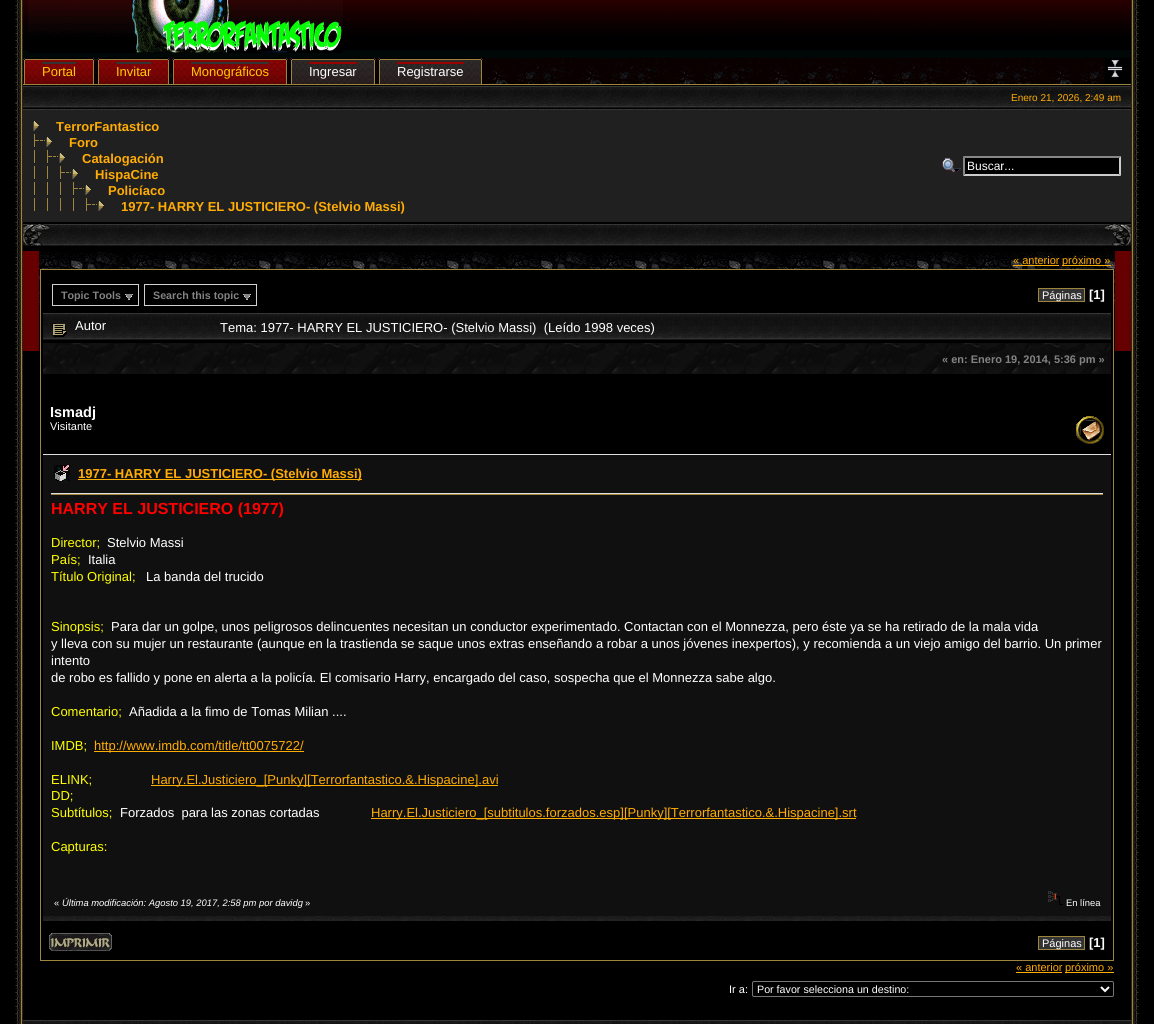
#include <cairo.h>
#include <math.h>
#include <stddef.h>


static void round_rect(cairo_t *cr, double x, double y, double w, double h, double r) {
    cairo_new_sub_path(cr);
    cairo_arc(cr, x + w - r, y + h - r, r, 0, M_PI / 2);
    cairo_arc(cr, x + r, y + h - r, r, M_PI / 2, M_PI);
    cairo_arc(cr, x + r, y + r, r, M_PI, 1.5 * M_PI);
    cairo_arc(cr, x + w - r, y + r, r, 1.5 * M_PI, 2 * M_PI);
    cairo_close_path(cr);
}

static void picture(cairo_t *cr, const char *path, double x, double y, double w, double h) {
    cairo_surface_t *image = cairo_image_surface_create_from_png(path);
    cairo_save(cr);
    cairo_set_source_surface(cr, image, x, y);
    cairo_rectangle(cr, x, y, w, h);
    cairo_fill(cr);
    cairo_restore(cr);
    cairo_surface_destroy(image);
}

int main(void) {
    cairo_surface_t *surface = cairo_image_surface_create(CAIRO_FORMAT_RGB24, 1154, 1024);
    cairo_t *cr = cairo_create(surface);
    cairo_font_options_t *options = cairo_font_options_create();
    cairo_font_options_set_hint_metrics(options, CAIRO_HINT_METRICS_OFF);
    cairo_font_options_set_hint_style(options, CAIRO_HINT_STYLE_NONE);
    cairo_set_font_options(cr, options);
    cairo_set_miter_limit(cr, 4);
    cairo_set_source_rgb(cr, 0, 0, 0);
    cairo_paint(cr);
    picture(cr, "img1.png", 15, 0, 8, 248);
    picture(cr, "img2.png", 15, 96, 8, 7);
    cairo_set_source_rgb(cr, 0, 0.031, 0.031);
    cairo_rectangle(cr, 23, 50, 1108, 8);
    cairo_fill(cr);
    picture(cr, "img3.png", 23, 0, 1108, 50);
    picture(cr, "img4.png", 28, 0, 315, 53);
    picture(cr, "img5.png", 95, 58, 1010, 26);
    picture(cr, "img6.png", 23, 58, 6, 26);
    picture(cr, "img7.png", 29, 58, 60, 26);
    cairo_select_font_face(cr, "Liberation Sans", CAIRO_FONT_SLANT_NORMAL, CAIRO_FONT_WEIGHT_NORMAL);
    cairo_set_font_size(cr, 13);
    cairo_set_source_rgb(cr, 1, 0.8, 0);
    cairo_move_to(cr, 42, 76);
    cairo_show_text(cr, "Portal");
    cairo_set_source_rgb(cr, 0.2, 0.2, 0.2);
    cairo_rectangle(cr, 42, 62, 34, 2);
    cairo_fill(cr);
    picture(cr, "img8.png", 89, 58, 6, 26);
    picture(cr, "img6.png", 97, 58, 6, 26);
    picture(cr, "img9.png", 103, 58, 61, 26);
    cairo_set_source_rgb(cr, 1, 0.8, 0);
    cairo_move_to(cr, 116, 76);
    cairo_show_text(cr, "Invitar");
    cairo_set_source_rgb(cr, 0.2, 0.2, 0.2);
    cairo_rectangle(cr, 116, 62, 35, 2);
    cairo_fill(cr);
    picture(cr, "img8.png", 164, 58, 6, 26);
    picture(cr, "img6.png", 172, 58, 6, 26);
    picture(cr, "img10.png", 178, 58, 104, 26);
    cairo_set_source_rgb(cr, 1, 0.8, 0);
    cairo_move_to(cr, 191, 76);
    cairo_show_text(cr, "Monográficos");
    cairo_set_source_rgb(cr, 0.2, 0.2, 0.2);
    cairo_rectangle(cr, 191, 62, 78, 2);
    cairo_fill(cr);
    picture(cr, "img8.png", 282, 58, 6, 26);
    picture(cr, "img11.png", 290, 58, 6, 26);
    picture(cr, "img12.png", 296, 58, 74, 26);
    cairo_set_source_rgb(cr, 1, 1, 1);
    cairo_move_to(cr, 309, 76);
    cairo_show_text(cr, "Ingresar");
    cairo_set_source_rgb(cr, 0.6, 0, 0);
    cairo_rectangle(cr, 309, 62, 48, 2);
    cairo_fill(cr);
    picture(cr, "img13.png", 370, 58, 6, 26);
    picture(cr, "img11.png", 378, 58, 6, 26);
    picture(cr, "img14.png", 384, 58, 93, 26);
    cairo_set_source_rgb(cr, 1, 1, 1);
    cairo_move_to(cr, 397, 76);
    cairo_show_text(cr, "Registrarse");
    cairo_set_source_rgb(cr, 0.6, 0, 0);
    cairo_rectangle(cr, 397, 62, 67, 2);
    cairo_fill(cr);
    picture(cr, "img13.png", 477, 58, 6, 26);
    picture(cr, "img15.png", 1107, 60, 16, 18);
    cairo_set_source_rgb(cr, 0.62, 0.522, 0.239);
    cairo_rectangle(cr, 23, 84, 1108, 1);
    cairo_fill(cr);
    picture(cr, "img16.png", 23, 86, 978, 24);
    picture(cr, "img17.png", 1001, 86, 130, 24);
    cairo_set_font_size(cr, 10);
    cairo_set_source_rgb(cr, 1, 0.675, 0.016);
    cairo_move_to(cr, 1011, 101);
    cairo_show_text(cr, "Enero 21, 2026, 2:49 am");
    cairo_set_source_rgb(cr, 0.125, 0.125, 0.125);
    cairo_rectangle(cr, 23, 110, 1108, 112);
    cairo_fill(cr);
    picture(cr, "img18.png", 33, 121, 6, 10);
    cairo_select_font_face(cr, "Liberation Sans", CAIRO_FONT_SLANT_NORMAL, CAIRO_FONT_WEIGHT_BOLD);
    cairo_set_font_size(cr, 13);
    cairo_set_source_rgb(cr, 1, 0.675, 0.016);
    cairo_move_to(cr, 56, 131);
    cairo_show_text(cr, "TerrorFantastico");
    picture(cr, "img19.png", 34, 134, 11, 13);
    picture(cr, "img18.png", 46, 137, 6, 10);
    cairo_move_to(cr, 69, 147);
    cairo_show_text(cr, "Foro");
    picture(cr, "img19.png", 47, 150, 11, 13);
    picture(cr, "img18.png", 59, 153, 6, 10);
    cairo_move_to(cr, 82, 163);
    cairo_show_text(cr, "Catalogación");
    cairo_set_source_rgb(cr, 0.62, 0.522, 0.239);
    cairo_rectangle(cr, 34, 150, 1, 13);
    cairo_fill(cr);
    picture(cr, "img19.png", 60, 166, 11, 13);
    picture(cr, "img18.png", 72, 169, 6, 10);
    cairo_set_source_rgb(cr, 1, 0.675, 0.016);
    cairo_move_to(cr, 95, 179);
    cairo_show_text(cr, "HispaCine");
    cairo_set_source_rgb(cr, 0.62, 0.522, 0.239);
    cairo_rectangle(cr, 34, 166, 1, 13);
    cairo_fill(cr);
    cairo_rectangle(cr, 47, 166, 1, 13);
    cairo_fill(cr);
    picture(cr, "img19.png", 73, 182, 11, 13);
    picture(cr, "img18.png", 85, 185, 6, 10);
    cairo_set_source_rgb(cr, 1, 0.675, 0.016);
    cairo_move_to(cr, 108, 195);
    cairo_show_text(cr, "Policíaco");
    cairo_set_source_rgb(cr, 0.62, 0.522, 0.239);
    cairo_rectangle(cr, 34, 182, 1, 13);
    cairo_fill(cr);
    cairo_rectangle(cr, 47, 182, 1, 13);
    cairo_fill(cr);
    cairo_rectangle(cr, 60, 182, 1, 13);
    cairo_fill(cr);
    picture(cr, "img19.png", 86, 198, 11, 13);
    picture(cr, "img18.png", 98, 201, 6, 10);
    cairo_set_source_rgb(cr, 1, 0.675, 0.016);
    cairo_move_to(cr, 121, 211);
    cairo_show_text(cr, "1977- HARRY EL JUSTICIERO- (Stelvio Massi)");
    cairo_set_source_rgb(cr, 0.62, 0.522, 0.239);
    cairo_rectangle(cr, 34, 198, 1, 13);
    cairo_fill(cr);
    cairo_rectangle(cr, 47, 198, 1, 13);
    cairo_fill(cr);
    cairo_rectangle(cr, 60, 198, 1, 13);
    cairo_fill(cr);
    cairo_rectangle(cr, 73, 198, 1, 13);
    cairo_fill(cr);
    picture(cr, "img20.png", 942, 158, 19, 15);
    cairo_set_source_rgb(cr, 0, 0, 0);
    cairo_rectangle(cr, 963, 156, 158, 20);
    cairo_fill(cr);
    cairo_set_source_rgb(cr, 0.533, 0.533, 0.533);
    cairo_new_path(cr);
    cairo_move_to(cr, 963, 156);
    cairo_line_to(cr, 1121, 156);
    cairo_line_to(cr, 1119, 158);
    cairo_line_to(cr, 965, 158);
    cairo_close_path(cr);
    cairo_fill(cr);
    cairo_set_source_rgb(cr, 0.8, 0.8, 0.8);
    cairo_new_path(cr);
    cairo_move_to(cr, 1121, 156);
    cairo_line_to(cr, 1121, 176);
    cairo_line_to(cr, 1119, 174);
    cairo_line_to(cr, 1119, 158);
    cairo_close_path(cr);
    cairo_fill(cr);
    cairo_new_path(cr);
    cairo_move_to(cr, 1121, 176);
    cairo_line_to(cr, 963, 176);
    cairo_line_to(cr, 965, 174);
    cairo_line_to(cr, 1119, 174);
    cairo_close_path(cr);
    cairo_fill(cr);
    cairo_set_source_rgb(cr, 0.533, 0.533, 0.533);
    cairo_new_path(cr);
    cairo_move_to(cr, 963, 176);
    cairo_line_to(cr, 963, 156);
    cairo_line_to(cr, 965, 158);
    cairo_line_to(cr, 965, 174);
    cairo_close_path(cr);
    cairo_fill(cr);
    cairo_select_font_face(cr, "Liberation Sans", CAIRO_FONT_SLANT_NORMAL, CAIRO_FONT_WEIGHT_NORMAL);
    cairo_set_font_size(cr, 12);
    cairo_set_source_rgb(cr, 1, 1, 1);
    cairo_move_to(cr, 967, 170);
    cairo_show_text(cr, "Buscar...");
    picture(cr, "img21.png", 23, 224, 46, 22);
    picture(cr, "img22.png", 69, 224, 1016, 22);
    picture(cr, "img23.png", 1085, 224, 46, 22);
    picture(cr, "img24.png", 1131, 0, 8, 248);
    picture(cr, "img25.png", 1131, 96, 8, 7);
    picture(cr, "img26.png", 15, 248, 8, 3);
    picture(cr, "img27.png", 1131, 248, 8, 3);
    picture(cr, "img28.png", 15, 251, 8, 765);
    picture(cr, "img2.png", 15, 630, 8, 7);
    cairo_set_source_rgb(cr, 0.4, 0, 0);
    cairo_rectangle(cr, 23, 251, 16, 100);
    cairo_fill(cr);
    picture(cr, "img29.png", 39, 252, 1076, 80);
    cairo_set_font_size(cr, 11);
    cairo_set_source_rgb(cr, 1, 0.675, 0.016);
    cairo_move_to(cr, 1013, 264);
    cairo_show_text(cr, "« anterior");
    cairo_rectangle(cr, 1013, 265, 46, 1);
    cairo_fill(cr);
    cairo_rectangle(cr, 1062, 265, 49, 1);
    cairo_fill(cr);
    cairo_move_to(cr, 1062, 264);
    cairo_show_text(cr, "próximo »");
    cairo_set_source_rgb(cr, 0, 0, 0);
    cairo_rectangle(cr, 41, 270, 1072, 62);
    cairo_fill(cr);
    cairo_set_source_rgb(cr, 0.62, 0.522, 0.239);
    cairo_rectangle(cr, 40, 269, 1074, 1);
    cairo_fill(cr);
    cairo_rectangle(cr, 1113, 269, 1, 692);
    cairo_fill(cr);
    cairo_rectangle(cr, 40, 269, 1, 654);
    cairo_fill(cr);
    picture(cr, "img30.png", 125, 294, 8, 6);
    cairo_rectangle(cr, 52.5, 284.5, 86, 21);
    cairo_set_source_rgb(cr, 0.816, 0.816, 0.816);
    cairo_set_line_width(cr, 1);
    cairo_stroke(cr);
    cairo_select_font_face(cr, "Liberation Sans", CAIRO_FONT_SLANT_NORMAL, CAIRO_FONT_WEIGHT_BOLD);
    cairo_set_font_size(cr, 10.7);
    cairo_set_source_rgb(cr, 0.518, 0.51, 0.518);
    cairo_move_to(cr, 61, 299);
    cairo_show_text(cr, "Topic Tools");
    picture(cr, "img30.png", 243, 294, 8, 6);
    cairo_rectangle(cr, 144.5, 284.5, 112, 21);
    cairo_set_source_rgb(cr, 0.816, 0.816, 0.816);
    cairo_stroke(cr);
    cairo_set_source_rgb(cr, 0.518, 0.51, 0.518);
    cairo_move_to(cr, 153, 299);
    cairo_show_text(cr, "Search this topic");
    cairo_set_source_rgb(cr, 0.2, 0.2, 0.2);
    cairo_rectangle(cr, 1038.5, 288.5, 46, 13);
    cairo_fill_preserve(cr);
    cairo_set_source_rgb(cr, 0.62, 0.522, 0.239);
    cairo_stroke(cr);
    cairo_select_font_face(cr, "Liberation Sans", CAIRO_FONT_SLANT_NORMAL, CAIRO_FONT_WEIGHT_NORMAL);
    cairo_set_font_size(cr, 11);
    cairo_set_source_rgb(cr, 1, 1, 1);
    cairo_move_to(cr, 1042, 299);
    cairo_show_text(cr, "Páginas");
    cairo_select_font_face(cr, "Liberation Sans", CAIRO_FONT_SLANT_NORMAL, CAIRO_FONT_WEIGHT_BOLD);
    cairo_set_font_size(cr, 13);
    cairo_move_to(cr, 1089, 299);
    cairo_show_text(cr, "[1]");
    picture(cr, "img31.png", 43, 313, 171, 27);
    picture(cr, "img32.png", 52, 323, 15, 14);
    cairo_select_font_face(cr, "Liberation Sans", CAIRO_FONT_SLANT_NORMAL, CAIRO_FONT_WEIGHT_NORMAL);
    cairo_move_to(cr, 75, 330);
    cairo_show_text(cr, "Autor");
    picture(cr, "img33.png", 214, 313, 897, 27);
    cairo_move_to(cr, 220, 332);
    cairo_show_text(cr, "Tema: 1977- HARRY EL JUSTICIERO- (Stelvio Massi)  (Leído 1998 veces)");
    picture(cr, "img34.png", 43, 343, 171, 31);
    picture(cr, "img35.png", 214, 343, 897, 31);
    cairo_select_font_face(cr, "Liberation Sans", CAIRO_FONT_SLANT_NORMAL, CAIRO_FONT_WEIGHT_BOLD);
    cairo_set_font_size(cr, 11);
    cairo_set_source_rgb(cr, 0.518, 0.51, 0.518);
    cairo_move_to(cr, 942, 363);
    cairo_show_text(cr, "« en: Enero 19, 2014, 5:36 pm »");
    cairo_set_source_rgb(cr, 0.063, 0.063, 0.063);
    cairo_rectangle(cr, 43, 455, 1068, 461);
    cairo_fill(cr);
    cairo_set_source_rgb(cr, 0.882, 0.875, 0.882);
    cairo_rectangle(cr, 43, 454, 1068, 1);
    cairo_fill(cr);
    cairo_set_font_size(cr, 14.5);
    cairo_set_source_rgb(cr, 1, 1, 1);
    cairo_move_to(cr, 50, 417);
    cairo_show_text(cr, "Ismadj");
    cairo_select_font_face(cr, "Liberation Sans", CAIRO_FONT_SLANT_NORMAL, CAIRO_FONT_WEIGHT_NORMAL);
    cairo_set_font_size(cr, 11);
    cairo_move_to(cr, 50, 430);
    cairo_show_text(cr, "Visitante");
    picture(cr, "img36.png", 1076, 416, 28, 28);
    picture(cr, "img37.png", 54, 465, 16, 16);
    cairo_set_source_rgb(cr, 1, 0.675, 0.016);
    cairo_rectangle(cr, 78, 479, 284, 1);
    cairo_fill(cr);
    cairo_select_font_face(cr, "Liberation Sans", CAIRO_FONT_SLANT_NORMAL, CAIRO_FONT_WEIGHT_BOLD);
    cairo_set_font_size(cr, 13);
    cairo_move_to(cr, 78, 478);
    cairo_show_text(cr, "1977- HARRY EL JUSTICIERO- (Stelvio Massi)");
    cairo_set_source_rgb(cr, 0.62, 0.522, 0.239);
    cairo_rectangle(cr, 51, 494, 1052, 1);
    cairo_fill(cr);
    cairo_set_source_rgb(cr, 0.882, 0.875, 0.882);
    cairo_rectangle(cr, 51, 493, 1052, 1);
    cairo_fill(cr);
    cairo_set_font_size(cr, 16);
    cairo_set_source_rgb(cr, 1, 0, 0);
    cairo_move_to(cr, 51, 514);
    cairo_show_text(cr, "HARRY EL JUSTICIERO (1977)");
    cairo_select_font_face(cr, "Liberation Sans", CAIRO_FONT_SLANT_NORMAL, CAIRO_FONT_WEIGHT_NORMAL);
    cairo_set_font_size(cr, 13);
    cairo_set_source_rgb(cr, 1, 1, 0);
    cairo_move_to(cr, 51, 547);
    cairo_show_text(cr, "Director;");
    cairo_set_source_rgb(cr, 1, 1, 1);
    cairo_move_to(cr, 107, 547);
    cairo_show_text(cr, "Stelvio Massi");
    cairo_set_source_rgb(cr, 1, 1, 0);
    cairo_move_to(cr, 51, 564);
    cairo_show_text(cr, "País;");
    cairo_set_source_rgb(cr, 1, 1, 1);
    cairo_move_to(cr, 88, 564);
    cairo_show_text(cr, "Italia");
    cairo_set_source_rgb(cr, 1, 1, 0);
    cairo_move_to(cr, 51, 581);
    cairo_show_text(cr, "Título Original;");
    cairo_set_source_rgb(cr, 1, 1, 1);
    cairo_move_to(cr, 146, 581);
    cairo_show_text(cr, "La banda del trucido");
    cairo_set_source_rgb(cr, 1, 1, 0);
    cairo_move_to(cr, 51, 631);
    cairo_show_text(cr, "Sinopsis;");
    cairo_set_source_rgb(cr, 1, 1, 1);
    cairo_move_to(cr, 111, 631);
    cairo_show_text(cr, "Para dar un golpe, unos peligrosos delincuentes necesitan un conductor experimentado. Contactan con el Monnezza, pero éste ya se ha retirado de la mala vida");
    cairo_move_to(cr, 51, 648);
    cairo_show_text(cr, "y lleva con su mujer un restaurante (aunque en la trastienda se saque unos extras enseñando a robar a unos jóvenes inexpertos), y recomienda a un viejo amigo del barrio. Un primer");
    cairo_move_to(cr, 51, 665);
    cairo_show_text(cr, "intento");
    cairo_move_to(cr, 51, 682);
    cairo_show_text(cr, "de robo es fallido y pone en alerta a la policía. El comisario Harry, encargado del caso, sospecha que el Monnezza sabe algo.");
    cairo_set_source_rgb(cr, 1, 1, 0);
    cairo_move_to(cr, 51, 716);
    cairo_show_text(cr, "Comentario;");
    cairo_set_source_rgb(cr, 1, 1, 1);
    cairo_move_to(cr, 129, 716);
    cairo_show_text(cr, "Añadida a la fimo de Tomas Milian ....");
    cairo_set_source_rgb(cr, 1, 1, 0);
    cairo_move_to(cr, 51, 750);
    cairo_show_text(cr, "IMDB;");
    cairo_set_source_rgb(cr, 1, 0.675, 0.016);
    cairo_rectangle(cr, 94, 751, 210, 1);
    cairo_fill(cr);
    cairo_move_to(cr, 94, 750);
    cairo_show_text(cr, "http://www.imdb.com/title/tt0075722/");
    cairo_set_source_rgb(cr, 1, 1, 0);
    cairo_move_to(cr, 51, 784);
    cairo_show_text(cr, "ELINK;");
    cairo_set_source_rgb(cr, 1, 0.675, 0.016);
    cairo_rectangle(cr, 151, 785, 347, 1);
    cairo_fill(cr);
    cairo_move_to(cr, 151, 784);
    cairo_show_text(cr, "Harry.El.Justiciero_[Punky][Terrorfantastico.&.Hispacine].avi");
    cairo_set_source_rgb(cr, 1, 1, 0);
    cairo_move_to(cr, 51, 800);
    cairo_show_text(cr, "DD;");
    cairo_move_to(cr, 51, 817);
    cairo_show_text(cr, "Subtítulos;");
    cairo_set_source_rgb(cr, 1, 1, 1);
    cairo_move_to(cr, 120, 817);
    cairo_show_text(cr, "Forzados  para las zonas cortadas");
    cairo_set_source_rgb(cr, 1, 0.675, 0.016);
    cairo_rectangle(cr, 371, 818, 485, 1);
    cairo_fill(cr);
    cairo_move_to(cr, 371, 817);
    cairo_show_text(cr, "Harry.El.Justiciero_[subtitulos.forzados.esp][Punky][Terrorfantastico.&.Hispacine].srt");
    cairo_set_source_rgb(cr, 1, 1, 0);
    cairo_move_to(cr, 51, 851);
    cairo_show_text(cr, "Capturas:");
    cairo_set_font_size(cr, 9.4);
    cairo_set_source_rgb(cr, 1, 1, 1);
    cairo_move_to(cr, 54, 906);
    cairo_show_text(cr, "«");
    cairo_select_font_face(cr, "Liberation Sans", CAIRO_FONT_SLANT_ITALIC, CAIRO_FONT_WEIGHT_NORMAL);
    cairo_move_to(cr, 62, 906);
    cairo_show_text(cr, "Última modificación: Agosto 19, 2017, 2:58 pm por davidg");
    cairo_select_font_face(cr, "Liberation Sans", CAIRO_FONT_SLANT_NORMAL, CAIRO_FONT_WEIGHT_NORMAL);
    cairo_move_to(cr, 305, 906);
    cairo_show_text(cr, "»");
    picture(cr, "img38.png", 1048, 891, 15, 14);
    cairo_move_to(cr, 1066, 906);
    cairo_show_text(cr, "En línea");
    picture(cr, "img39.png", 43, 916, 1068, 5);
    cairo_set_source_rgb(cr, 0.62, 0.522, 0.239);
    cairo_rectangle(cr, 40, 960, 1074, 1);
    cairo_fill(cr);
    cairo_rectangle(cr, 40, 923, 1, 38);
    cairo_fill(cr);
    picture(cr, "img40.png", 49, 933, 63, 18);
    cairo_set_source_rgb(cr, 0.2, 0.2, 0.2);
    cairo_rectangle(cr, 1038.5, 936.5, 46, 13);
    cairo_fill_preserve(cr);
    cairo_set_source_rgb(cr, 0.62, 0.522, 0.239);
    cairo_stroke(cr);
    cairo_set_font_size(cr, 11);
    cairo_set_source_rgb(cr, 1, 1, 1);
    cairo_move_to(cr, 1042, 947);
    cairo_show_text(cr, "Páginas");
    cairo_select_font_face(cr, "Liberation Sans", CAIRO_FONT_SLANT_NORMAL, CAIRO_FONT_WEIGHT_BOLD);
    cairo_set_font_size(cr, 13);
    cairo_move_to(cr, 1089, 947);
    cairo_show_text(cr, "[1]");
    cairo_select_font_face(cr, "Liberation Sans", CAIRO_FONT_SLANT_NORMAL, CAIRO_FONT_WEIGHT_NORMAL);
    cairo_set_font_size(cr, 11);
    cairo_set_source_rgb(cr, 1, 0.675, 0.016);
    cairo_move_to(cr, 1016, 971);
    cairo_show_text(cr, "« anterior");
    cairo_rectangle(cr, 1016, 972, 46, 1);
    cairo_fill(cr);
    cairo_rectangle(cr, 1065, 972, 49, 1);
    cairo_fill(cr);
    cairo_move_to(cr, 1065, 971);
    cairo_show_text(cr, "próximo »");
    cairo_set_source_rgb(cr, 1, 1, 1);
    cairo_move_to(cr, 729, 993);
    cairo_show_text(cr, "Ir a:");
    round_rect(cr, 752.5, 981.5, 361, 15, 1.5);
    cairo_set_source_rgb(cr, 0.463, 0.463, 0.463);
    cairo_stroke(cr);
    cairo_new_path(cr);
    cairo_move_to(cr, 1101, 987);
    cairo_line_to(cr, 1105, 991);
    cairo_line_to(cr, 1109, 987);
    cairo_set_source_rgb(cr, 1, 1, 1);
    cairo_set_line_width(cr, 2);
    cairo_stroke(cr);
    cairo_set_font_size(cr, 10.7);
    cairo_move_to(cr, 757, 993);
    cairo_show_text(cr, "Por favor selecciona un destino:");
    cairo_set_source_rgb(cr, 0.4, 0, 0);
    cairo_rectangle(cr, 1115, 251, 16, 100);
    cairo_fill(cr);
    picture(cr, "img41.png", 1131, 251, 8, 765);
    picture(cr, "img26.png", 15, 1016, 8, 3);
    picture(cr, "img27.png", 1131, 1016, 8, 3);
    picture(cr, "img42.png", 15, 1019, 8, 5);
    picture(cr, "img43.png", 23, 1019, 1108, 5);
    picture(cr, "img44.png", 1131, 1019, 8, 5);
    cairo_surface_write_to_png(surface, "page.png");
    cairo_font_options_destroy(options);
    cairo_destroy(cr);
    cairo_surface_destroy(surface);
    return 0;
}
